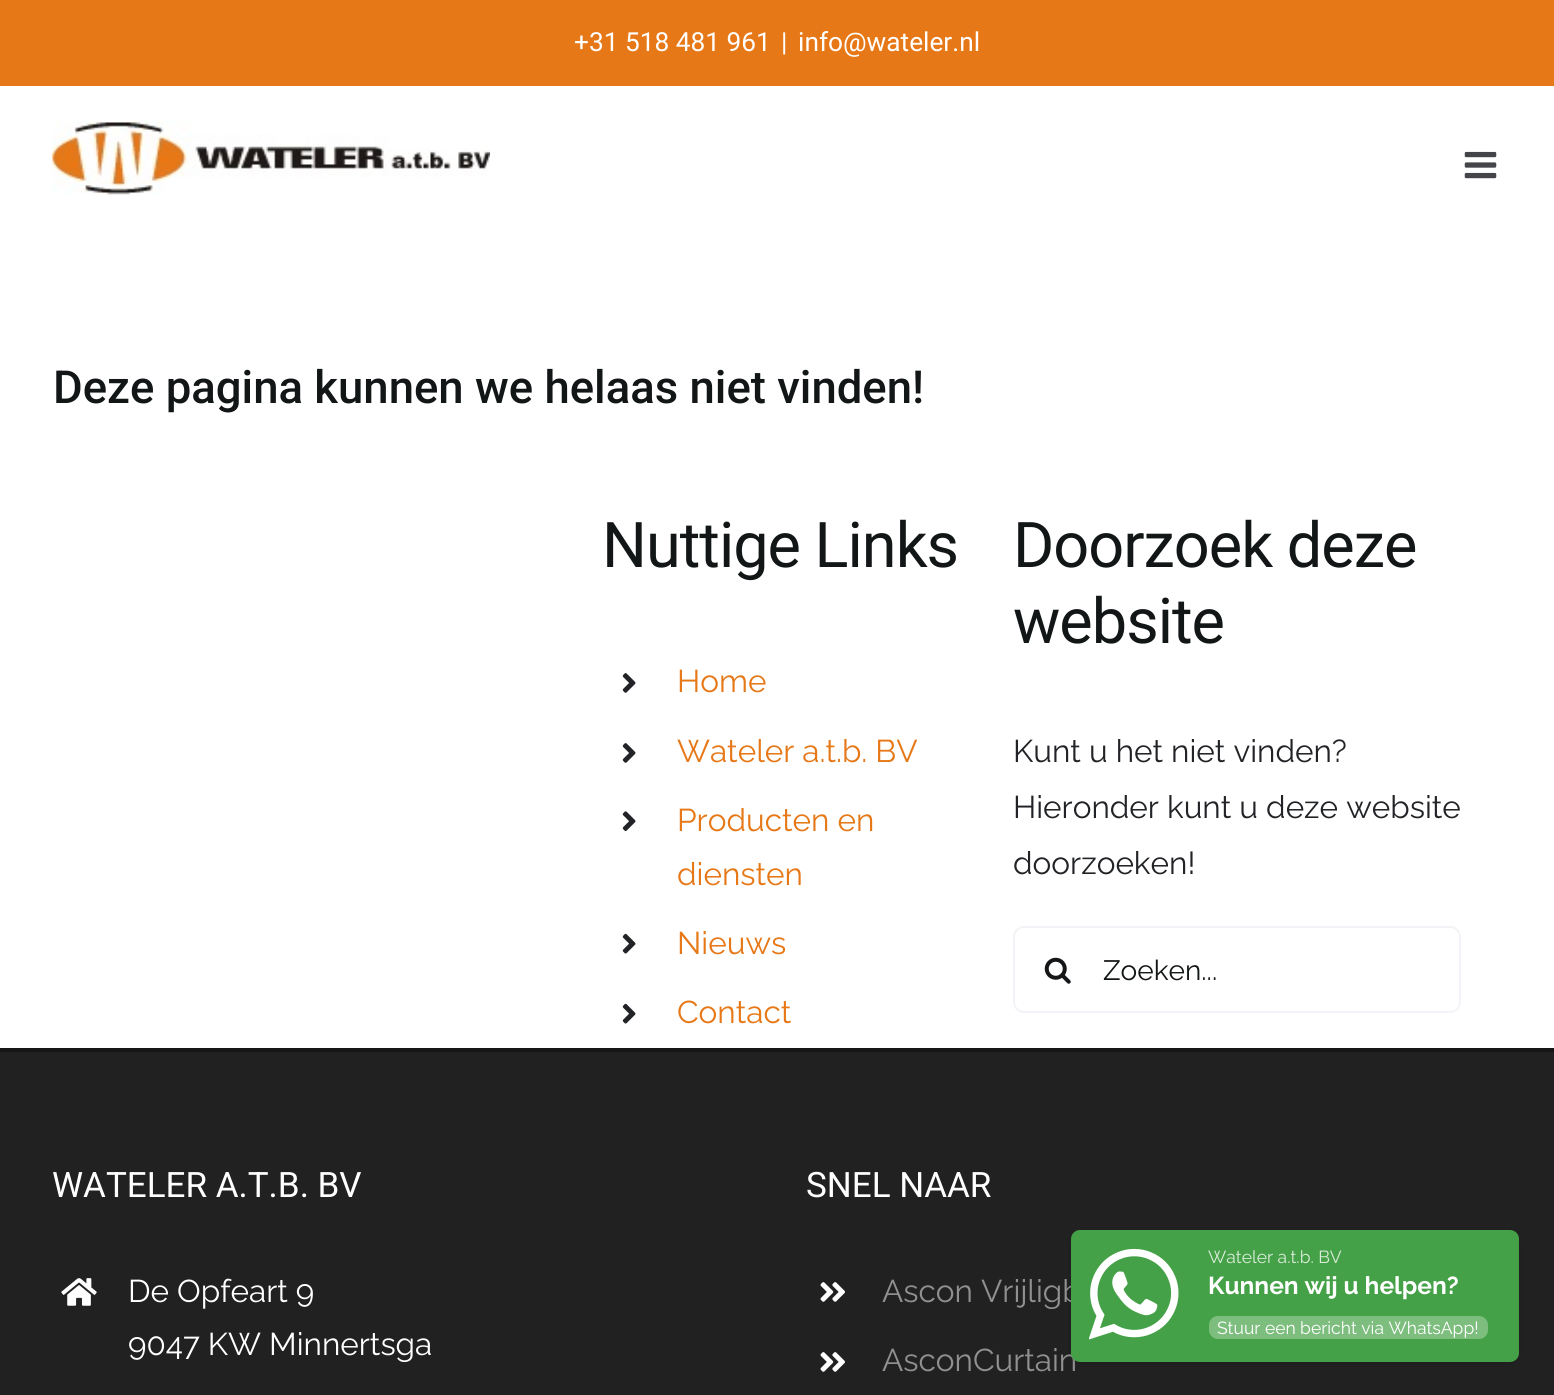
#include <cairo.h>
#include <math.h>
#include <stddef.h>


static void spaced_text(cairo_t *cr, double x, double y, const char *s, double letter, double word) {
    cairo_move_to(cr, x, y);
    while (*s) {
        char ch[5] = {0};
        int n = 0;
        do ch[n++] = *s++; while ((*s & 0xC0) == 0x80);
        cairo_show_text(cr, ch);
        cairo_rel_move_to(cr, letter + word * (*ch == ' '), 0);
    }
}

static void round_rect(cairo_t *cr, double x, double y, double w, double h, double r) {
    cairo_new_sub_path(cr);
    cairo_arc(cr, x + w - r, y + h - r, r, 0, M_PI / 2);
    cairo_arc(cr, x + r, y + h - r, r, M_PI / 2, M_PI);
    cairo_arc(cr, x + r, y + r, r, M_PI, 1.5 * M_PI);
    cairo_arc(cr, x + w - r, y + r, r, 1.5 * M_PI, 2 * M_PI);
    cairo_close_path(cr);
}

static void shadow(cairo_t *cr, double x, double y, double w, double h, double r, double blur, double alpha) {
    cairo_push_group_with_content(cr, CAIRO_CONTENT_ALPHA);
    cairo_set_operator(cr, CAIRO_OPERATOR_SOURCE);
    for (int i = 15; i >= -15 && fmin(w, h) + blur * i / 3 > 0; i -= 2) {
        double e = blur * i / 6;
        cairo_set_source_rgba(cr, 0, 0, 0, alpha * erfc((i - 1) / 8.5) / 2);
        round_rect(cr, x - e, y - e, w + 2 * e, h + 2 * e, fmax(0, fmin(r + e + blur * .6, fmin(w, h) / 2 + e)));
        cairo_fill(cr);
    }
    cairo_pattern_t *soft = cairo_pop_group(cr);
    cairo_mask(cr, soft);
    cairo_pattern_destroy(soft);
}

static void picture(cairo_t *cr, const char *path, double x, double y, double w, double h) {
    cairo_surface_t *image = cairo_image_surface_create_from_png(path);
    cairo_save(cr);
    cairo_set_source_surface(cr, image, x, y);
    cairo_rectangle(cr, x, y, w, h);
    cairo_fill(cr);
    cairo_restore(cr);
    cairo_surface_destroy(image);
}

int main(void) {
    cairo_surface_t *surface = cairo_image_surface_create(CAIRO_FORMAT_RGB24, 1554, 1395);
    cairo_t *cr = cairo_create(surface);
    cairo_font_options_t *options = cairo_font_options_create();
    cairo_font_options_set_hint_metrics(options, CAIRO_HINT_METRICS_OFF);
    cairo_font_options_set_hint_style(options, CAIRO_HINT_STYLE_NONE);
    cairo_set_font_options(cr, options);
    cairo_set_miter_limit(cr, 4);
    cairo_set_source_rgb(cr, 1, 1, 1);
    cairo_paint(cr);
    cairo_set_source_rgb(cr, 0.902, 0.471, 0.09);
    cairo_rectangle(cr, 0, 0, 1554, 86);
    cairo_fill(cr);
    cairo_select_font_face(cr, "Roboto", CAIRO_FONT_SLANT_NORMAL, CAIRO_FONT_WEIGHT_NORMAL);
    cairo_set_font_size(cr, 26.25);
    cairo_set_source_rgb(cr, 1, 1, 1);
    cairo_move_to(cr, 574, 51);
    cairo_show_text(cr, "+31 518 481 961");
    cairo_move_to(cr, 781, 51);
    cairo_show_text(cr, "|");
    cairo_move_to(cr, 798, 51);
    cairo_show_text(cr, "info@wateler.nl");
    picture(cr, "img1.png", 52, 121, 438, 74);
    picture(cr, "img2.png", 1464, 151, 33, 28);
    cairo_select_font_face(cr, "Roboto Medium", CAIRO_FONT_SLANT_NORMAL, CAIRO_FONT_WEIGHT_NORMAL);
    cairo_set_font_size(cr, 45.5);
    cairo_set_source_rgb(cr, 0.078, 0.086, 0.09);
    cairo_move_to(cr, 53, 403);
    cairo_show_text(cr, "Deze pagina kunnen we helaas niet vinden!");
    cairo_select_font_face(cr, "Roboto", CAIRO_FONT_SLANT_NORMAL, CAIRO_FONT_WEIGHT_NORMAL);
    cairo_set_font_size(cr, 63);
    spaced_text(cr, 602, 567, "Nuttige Links", -1, 0);
    picture(cr, "img3.png", 622, 673, 14, 20);
    cairo_select_font_face(cr, "Raleway", CAIRO_FONT_SLANT_NORMAL, CAIRO_FONT_WEIGHT_NORMAL);
    cairo_set_font_size(cr, 31.5);
    cairo_set_source_rgb(cr, 0.902, 0.471, 0.09);
    cairo_move_to(cr, 677, 692);
    cairo_show_text(cr, "Home");
    picture(cr, "img3.png", 622, 743, 14, 20);
    cairo_move_to(cr, 677, 762);
    cairo_show_text(cr, "Wateler a.t.b. BV");
    picture(cr, "img4.png", 622, 811, 14, 20);
    cairo_move_to(cr, 677, 831);
    cairo_show_text(cr, "Producten en");
    cairo_move_to(cr, 677, 885);
    cairo_show_text(cr, "diensten");
    picture(cr, "img5.png", 622, 933, 14, 21);
    cairo_move_to(cr, 677, 954);
    cairo_show_text(cr, "Nieuws");
    picture(cr, "img5.png", 622, 1003, 14, 21);
    cairo_move_to(cr, 677, 1023);
    cairo_show_text(cr, "Contact");
    cairo_select_font_face(cr, "Roboto", CAIRO_FONT_SLANT_NORMAL, CAIRO_FONT_WEIGHT_NORMAL);
    cairo_set_font_size(cr, 63);
    cairo_set_source_rgb(cr, 0.078, 0.086, 0.09);
    spaced_text(cr, 1013, 567, "Doorzoek deze", -1, 0);
    spaced_text(cr, 1013, 643, "website", -1, 0);
    cairo_select_font_face(cr, "Raleway", CAIRO_FONT_SLANT_NORMAL, CAIRO_FONT_WEIGHT_NORMAL);
    cairo_set_font_size(cr, 31.5);
    cairo_set_source_rgb(cr, 0.129, 0.137, 0.149);
    cairo_move_to(cr, 1013, 762);
    cairo_show_text(cr, "Kunt u het niet vinden?");
    cairo_move_to(cr, 1013, 818);
    cairo_show_text(cr, "Hieronder kunt u deze website");
    cairo_move_to(cr, 1013, 874);
    cairo_show_text(cr, "doorzoeken!");
    round_rect(cr, 1014, 927, 446, 85, 10);
    cairo_set_source_rgb(cr, 0.949, 0.953, 0.961);
    cairo_stroke(cr);
    picture(cr, "img6.png", 1044, 957, 27, 27);
    cairo_set_font_size(cr, 28);
    cairo_set_source_rgb(cr, 0.078, 0.086, 0.09);
    cairo_move_to(cr, 1103, 980);
    cairo_show_text(cr, "Zoeken...");
    cairo_set_source_rgb(cr, 0.129, 0.129, 0.129);
    cairo_rectangle(cr, 0, 1052, 1554, 343);
    cairo_fill(cr);
    cairo_set_source_rgb(cr, 0.086, 0.086, 0.086);
    cairo_rectangle(cr, 0, 1048, 1554, 4);
    cairo_fill(cr);
    cairo_select_font_face(cr, "Roboto", CAIRO_FONT_SLANT_NORMAL, CAIRO_FONT_WEIGHT_NORMAL);
    cairo_set_font_size(cr, 35);
    cairo_set_source_rgb(cr, 1, 1, 1);
    cairo_move_to(cr, 52, 1197);
    cairo_show_text(cr, "WATELER A.T.B. BV");
    picture(cr, "img7.png", 61, 1278, 36, 28);
    cairo_select_font_face(cr, "Raleway", CAIRO_FONT_SLANT_NORMAL, CAIRO_FONT_WEIGHT_NORMAL);
    cairo_set_font_size(cr, 31.5);
    cairo_move_to(cr, 128, 1302);
    cairo_show_text(cr, "De Opfeart 9");
    cairo_move_to(cr, 128, 1355);
    cairo_show_text(cr, "9047 KW Minnertsga");
    cairo_select_font_face(cr, "Roboto", CAIRO_FONT_SLANT_NORMAL, CAIRO_FONT_WEIGHT_NORMAL);
    cairo_set_font_size(cr, 35);
    cairo_move_to(cr, 806, 1197);
    cairo_show_text(cr, "SNEL NAAR");
    picture(cr, "img8.png", 820, 1282, 25, 20);
    cairo_select_font_face(cr, "Raleway", CAIRO_FONT_SLANT_NORMAL, CAIRO_FONT_WEIGHT_NORMAL);
    cairo_set_font_size(cr, 31.5);
    cairo_set_source_rgb(cr, 0.565, 0.565, 0.565);
    cairo_move_to(cr, 882, 1302);
    cairo_show_text(cr, "Ascon Vrijligb");
    picture(cr, "img8.png", 820, 1352, 25, 20);
    cairo_move_to(cr, 882, 1371);
    cairo_show_text(cr, "AsconCurtain");
    cairo_set_source_rgb(cr, 0, 0, 0);
    shadow(cr, 1071, 1232, 448, 131, 9, 2, 0.15);
    cairo_set_source_rgb(cr, 0.271, 0.631, 0.278);
    round_rect(cr, 1071, 1230, 448, 132, 9);
    cairo_fill(cr);
    picture(cr, "img9.png", 1089, 1248, 90, 92);
    cairo_set_font_size(cr, 17.5);
    cairo_set_source_rgb(cr, 0.855, 0.925, 0.855);
    cairo_move_to(cr, 1208, 1263);
    cairo_show_text(cr, "Wateler a.t.b. BV");
    cairo_select_font_face(cr, "Raleway", CAIRO_FONT_SLANT_NORMAL, CAIRO_FONT_WEIGHT_BOLD);
    cairo_set_font_size(cr, 24.5);
    cairo_set_source_rgb(cr, 1, 1, 1);
    cairo_move_to(cr, 1208, 1294);
    cairo_show_text(cr, "Kunnen wij u helpen?");
    cairo_set_source_rgb(cr, 0.49, 0.741, 0.494);
    round_rect(cr, 1209, 1316, 279, 23, 9);
    cairo_fill(cr);
    cairo_select_font_face(cr, "Raleway", CAIRO_FONT_SLANT_NORMAL, CAIRO_FONT_WEIGHT_NORMAL);
    cairo_set_font_size(cr, 17.5);
    cairo_set_source_rgb(cr, 1, 1, 1);
    cairo_move_to(cr, 1217, 1334);
    cairo_show_text(cr, "Stuur een bericht via WhatsApp!");
    cairo_surface_write_to_png(surface, "page.png");
    cairo_font_options_destroy(options);
    cairo_destroy(cr);
    cairo_surface_destroy(surface);
    return 0;
}
